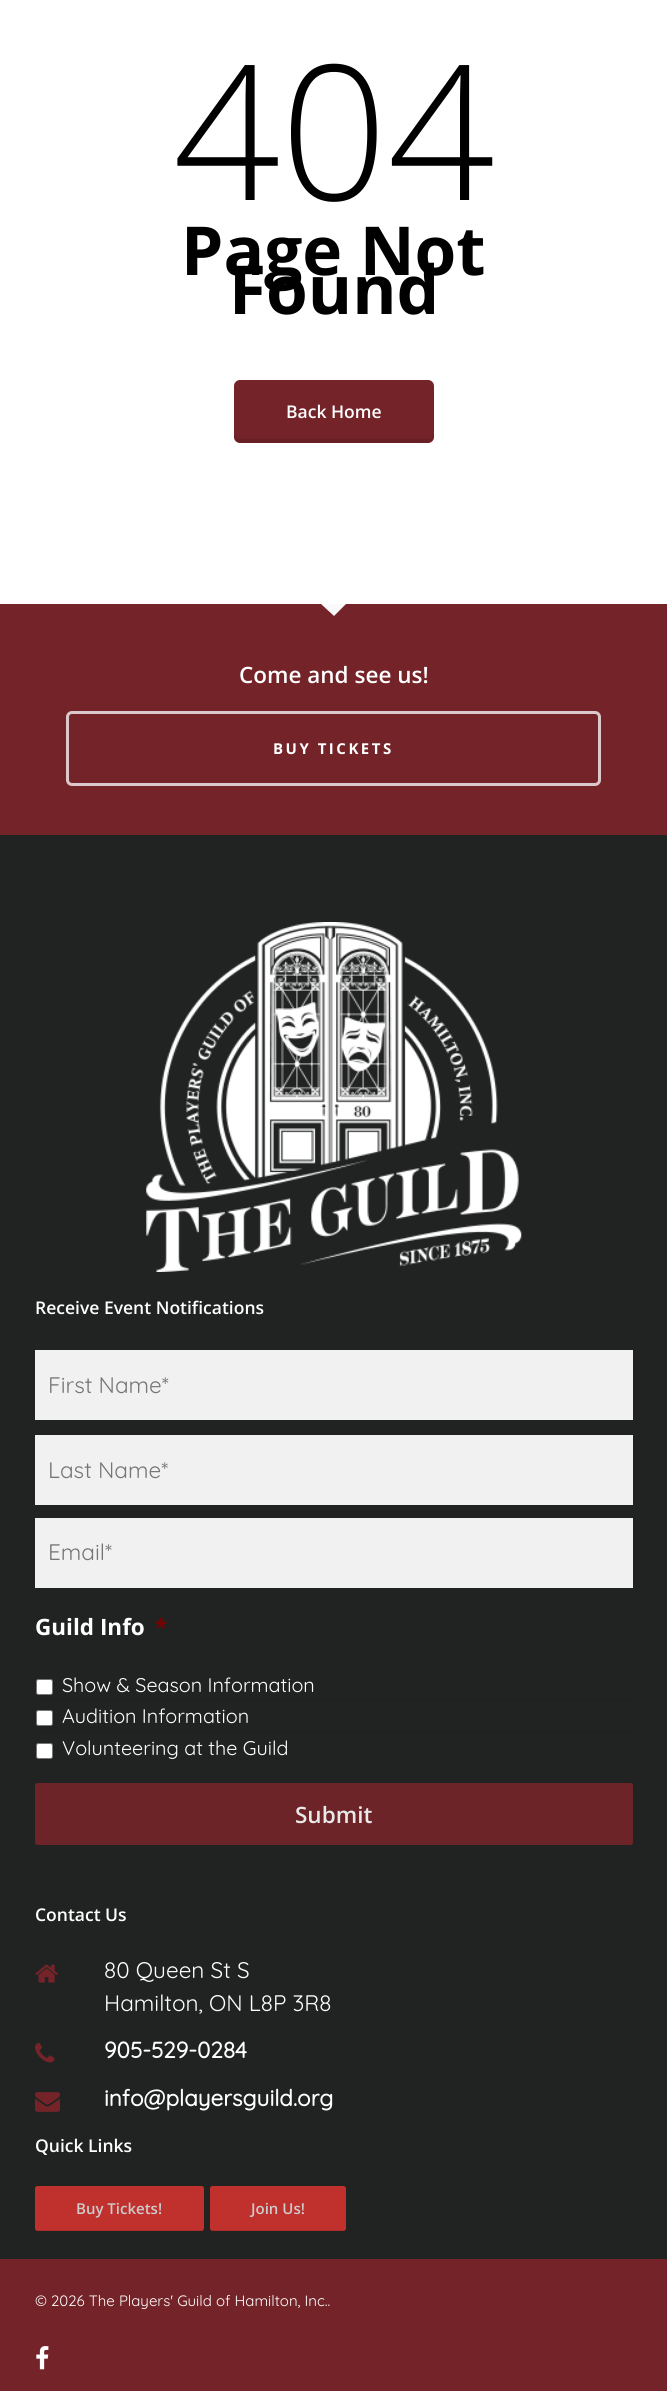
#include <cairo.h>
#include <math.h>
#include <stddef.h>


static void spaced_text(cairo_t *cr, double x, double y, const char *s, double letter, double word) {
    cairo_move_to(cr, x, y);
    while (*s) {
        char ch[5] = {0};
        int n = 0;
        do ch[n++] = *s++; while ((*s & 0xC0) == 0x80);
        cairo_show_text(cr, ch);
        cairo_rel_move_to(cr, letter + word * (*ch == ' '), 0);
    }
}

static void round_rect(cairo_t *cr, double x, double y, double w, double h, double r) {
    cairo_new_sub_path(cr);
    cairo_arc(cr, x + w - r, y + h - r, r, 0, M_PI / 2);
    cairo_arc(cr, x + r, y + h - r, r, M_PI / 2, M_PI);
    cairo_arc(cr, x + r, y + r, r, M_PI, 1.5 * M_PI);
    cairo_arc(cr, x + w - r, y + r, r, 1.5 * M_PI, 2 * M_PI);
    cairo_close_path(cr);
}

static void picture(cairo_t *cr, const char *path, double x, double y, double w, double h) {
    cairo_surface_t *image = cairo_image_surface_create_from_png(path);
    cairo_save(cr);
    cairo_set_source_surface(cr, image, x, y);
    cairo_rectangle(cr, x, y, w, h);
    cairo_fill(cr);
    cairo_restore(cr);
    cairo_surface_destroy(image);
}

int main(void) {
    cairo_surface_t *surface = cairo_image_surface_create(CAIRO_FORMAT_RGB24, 667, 2391);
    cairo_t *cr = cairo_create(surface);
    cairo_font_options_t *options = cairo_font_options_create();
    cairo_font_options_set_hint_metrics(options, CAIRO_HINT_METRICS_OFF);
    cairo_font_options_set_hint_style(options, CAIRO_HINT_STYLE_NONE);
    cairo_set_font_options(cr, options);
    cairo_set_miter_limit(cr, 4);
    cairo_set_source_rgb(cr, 1, 1, 1);
    cairo_paint(cr);
    cairo_select_font_face(cr, "Open Sans Light", CAIRO_FONT_SLANT_NORMAL, CAIRO_FONT_WEIGHT_NORMAL);
    cairo_set_font_size(cr, 188);
    cairo_set_source_rgb(cr, 0, 0, 0);
    cairo_move_to(cr, 173, 200);
    cairo_show_text(cr, "404");
    cairo_select_font_face(cr, "Open Sans", CAIRO_FONT_SLANT_NORMAL, CAIRO_FONT_WEIGHT_BOLD);
    cairo_set_font_size(cr, 67.5);
    cairo_move_to(cr, 181, 275);
    cairo_show_text(cr, "Page Not");
    cairo_move_to(cr, 229, 314);
    cairo_show_text(cr, "Found");
    cairo_set_source_rgb(cr, 0.455, 0.141, 0.161);
    round_rect(cr, 234, 380, 200, 63, 6);
    cairo_fill(cr);
    cairo_set_source_rgba(cr, 0, 0, 0, 0.1);
    cairo_new_path(cr);
    cairo_move_to(cr, 234, 432);
    cairo_line_to(cr, 234, 437);
    cairo_curve_to(cr, 234, 440, 237, 443, 240, 443);
    cairo_line_to(cr, 428, 443);
    cairo_curve_to(cr, 431, 443, 434, 440, 434, 437);
    cairo_line_to(cr, 434, 432);
    cairo_curve_to(cr, 434, 436, 431, 439, 428, 439);
    cairo_line_to(cr, 240, 439);
    cairo_curve_to(cr, 237, 439, 234, 436, 234, 432);
    cairo_close_path(cr);
    cairo_fill(cr);
    cairo_select_font_face(cr, "Open Sans SemiBold", CAIRO_FONT_SLANT_NORMAL, CAIRO_FONT_WEIGHT_NORMAL);
    cairo_set_font_size(cr, 17.5);
    cairo_set_source_rgb(cr, 1, 1, 1);
    cairo_move_to(cr, 286, 418);
    cairo_show_text(cr, "Back Home");
    cairo_set_source_rgb(cr, 0.129, 0.137, 0.133);
    cairo_rectangle(cr, 0, 835, 667, 1424);
    cairo_fill(cr);
    cairo_set_source_rgb(cr, 0.455, 0.141, 0.161);
    cairo_rectangle(cr, 0, 604, 667, 231);
    cairo_fill(cr);
    cairo_set_source_rgb(cr, 0.973, 0.973, 0.973);
    cairo_new_path(cr);
    cairo_move_to(cr, 321, 604);
    cairo_line_to(cr, 346, 604);
    cairo_line_to(cr, 334, 616);
    cairo_close_path(cr);
    cairo_fill(cr);
    cairo_set_font_size(cr, 22.5);
    cairo_set_source_rgb(cr, 1, 1, 1);
    cairo_move_to(cr, 239, 683);
    cairo_show_text(cr, "Come and see us!");
    round_rect(cr, 67.5, 712.5, 532, 72, 4.5);
    cairo_set_source_rgb(cr, 0.863, 0.784, 0.792);
    cairo_set_line_width(cr, 3);
    cairo_stroke(cr);
    cairo_select_font_face(cr, "Open Sans", CAIRO_FONT_SLANT_NORMAL, CAIRO_FONT_WEIGHT_BOLD);
    cairo_set_font_size(cr, 15);
    cairo_set_source_rgb(cr, 1, 1, 1);
    spaced_text(cr, 273, 754, "BUY TICKETS", 2.5, 0);
    picture(cr, "img1.png", 146, 922, 376, 350);
    cairo_select_font_face(cr, "Open Sans SemiBold", CAIRO_FONT_SLANT_NORMAL, CAIRO_FONT_WEIGHT_NORMAL);
    cairo_set_font_size(cr, 17.5);
    cairo_move_to(cr, 35, 1314);
    cairo_show_text(cr, "Receive Event Notifications");
    cairo_set_source_rgb(cr, 0.945, 0.945, 0.945);
    cairo_rectangle(cr, 35, 1350, 598, 70);
    cairo_fill(cr);
    cairo_select_font_face(cr, "Quicksand Light", CAIRO_FONT_SLANT_NORMAL, CAIRO_FONT_WEIGHT_NORMAL);
    cairo_set_font_size(cr, 22.5);
    cairo_set_source_rgb(cr, 0.459, 0.459, 0.459);
    cairo_move_to(cr, 48, 1393);
    cairo_show_text(cr, "First Name*");
    cairo_set_source_rgb(cr, 0.945, 0.945, 0.945);
    cairo_rectangle(cr, 35, 1435, 598, 70);
    cairo_fill(cr);
    cairo_set_source_rgb(cr, 0.459, 0.459, 0.459);
    cairo_move_to(cr, 48, 1478);
    cairo_show_text(cr, "Last Name*");
    cairo_set_source_rgb(cr, 0.945, 0.945, 0.945);
    cairo_rectangle(cr, 35, 1518, 598, 70);
    cairo_fill(cr);
    cairo_set_source_rgb(cr, 0.459, 0.459, 0.459);
    cairo_move_to(cr, 48, 1560);
    cairo_show_text(cr, "Email*");
    cairo_select_font_face(cr, "Open Sans", CAIRO_FONT_SLANT_NORMAL, CAIRO_FONT_WEIGHT_BOLD);
    cairo_set_source_rgb(cr, 1, 1, 1);
    cairo_move_to(cr, 35, 1635);
    cairo_show_text(cr, "Guild Info");
    cairo_set_source_rgb(cr, 0.475, 0, 0);
    cairo_move_to(cr, 155, 1635);
    cairo_show_text(cr, "*");
    cairo_set_source_rgb(cr, 0.118, 0.125, 0.122);
    cairo_rectangle(cr, 35, 1700, 598, 1);
    cairo_fill(cr);
    cairo_set_source_rgb(cr, 1, 1, 1);
    round_rect(cr, 36.5, 1679.5, 16, 15, 2);
    cairo_fill_preserve(cr);
    cairo_set_source_rgb(cr, 0.463, 0.463, 0.463);
    cairo_set_line_width(cr, 1);
    cairo_stroke(cr);
    cairo_select_font_face(cr, "Quicksand Light", CAIRO_FONT_SLANT_NORMAL, CAIRO_FONT_WEIGHT_NORMAL);
    cairo_set_font_size(cr, 19.75);
    cairo_set_source_rgb(cr, 1, 1, 1);
    cairo_move_to(cr, 62, 1692);
    cairo_show_text(cr, "Show & Season Information");
    cairo_set_source_rgb(cr, 0.118, 0.125, 0.122);
    cairo_rectangle(cr, 35, 1731, 598, 1);
    cairo_fill(cr);
    cairo_set_source_rgb(cr, 1, 1, 1);
    round_rect(cr, 36.5, 1710.5, 16, 15, 2);
    cairo_fill_preserve(cr);
    cairo_set_source_rgb(cr, 0.463, 0.463, 0.463);
    cairo_stroke(cr);
    cairo_set_source_rgb(cr, 1, 1, 1);
    cairo_move_to(cr, 62, 1723);
    cairo_show_text(cr, "Audition Information");
    round_rect(cr, 36.5, 1743.5, 16, 15, 2);
    cairo_fill_preserve(cr);
    cairo_set_source_rgb(cr, 0.463, 0.463, 0.463);
    cairo_stroke(cr);
    cairo_set_source_rgb(cr, 1, 1, 1);
    cairo_move_to(cr, 62, 1755);
    cairo_show_text(cr, "Volunteering at the Guild");
    cairo_set_source_rgb(cr, 0.424, 0.141, 0.157);
    round_rect(cr, 35, 1783, 598, 62, 2.5);
    cairo_fill(cr);
    cairo_select_font_face(cr, "Open Sans SemiBold", CAIRO_FONT_SLANT_NORMAL, CAIRO_FONT_WEIGHT_NORMAL);
    cairo_set_font_size(cr, 22.5);
    cairo_set_source_rgb(cr, 0.914, 0.914, 0.914);
    cairo_move_to(cr, 295, 1823);
    cairo_show_text(cr, "Submit");
    cairo_set_font_size(cr, 17.5);
    cairo_set_source_rgb(cr, 1, 1, 1);
    cairo_move_to(cr, 35, 1921);
    cairo_show_text(cr, "Contact Us");
    picture(cr, "img2.png", 35, 1964, 23, 19);
    cairo_select_font_face(cr, "Quicksand Light", CAIRO_FONT_SLANT_NORMAL, CAIRO_FONT_WEIGHT_NORMAL);
    cairo_set_font_size(cr, 22.5);
    cairo_move_to(cr, 104, 1978);
    cairo_show_text(cr, "80 Queen St S");
    cairo_move_to(cr, 104, 2011);
    cairo_show_text(cr, "Hamilton, ON L8P 3R8");
    picture(cr, "img3.png", 35, 2042, 20, 21);
    cairo_select_font_face(cr, "Quicksand", CAIRO_FONT_SLANT_NORMAL, CAIRO_FONT_WEIGHT_BOLD);
    cairo_move_to(cr, 104, 2058);
    cairo_show_text(cr, "905-529-0284");
    picture(cr, "img4.png", 35, 2092, 25, 20);
    cairo_move_to(cr, 104, 2106);
    cairo_show_text(cr, "info@playersguild.org");
    cairo_select_font_face(cr, "Open Sans SemiBold", CAIRO_FONT_SLANT_NORMAL, CAIRO_FONT_WEIGHT_NORMAL);
    cairo_set_font_size(cr, 17.5);
    cairo_move_to(cr, 35, 2152);
    cairo_show_text(cr, "Quick Links");
    cairo_set_source_rgb(cr, 0.753, 0.188, 0.176);
    round_rect(cr, 35, 2186, 169, 45, 2.5);
    cairo_fill(cr);
    cairo_set_source_rgba(cr, 0, 0, 0, 0.1);
    cairo_new_path(cr);
    cairo_move_to(cr, 35, 2228);
    cairo_curve_to(cr, 35, 2230, 36, 2231, 38, 2231);
    cairo_line_to(cr, 202, 2231);
    cairo_curve_to(cr, 203, 2231, 204, 2230, 204, 2228);
    cairo_curve_to(cr, 204, 2229, 203, 2230, 201, 2230);
    cairo_line_to(cr, 38, 2230);
    cairo_curve_to(cr, 36, 2230, 35, 2229, 35, 2228);
    cairo_close_path(cr);
    cairo_fill(cr);
    cairo_set_font_size(cr, 15);
    cairo_set_source_rgb(cr, 0.8, 0.8, 0.8);
    cairo_move_to(cr, 76, 2214);
    cairo_show_text(cr, "Buy Tickets!");
    cairo_set_source_rgb(cr, 0.753, 0.188, 0.176);
    round_rect(cr, 210, 2186, 136, 45, 2.5);
    cairo_fill(cr);
    cairo_set_source_rgba(cr, 0, 0, 0, 0.1);
    cairo_new_path(cr);
    cairo_move_to(cr, 210, 2228);
    cairo_curve_to(cr, 210, 2230, 211, 2231, 212, 2231);
    cairo_line_to(cr, 344, 2231);
    cairo_curve_to(cr, 345, 2231, 346, 2230, 346, 2228);
    cairo_curve_to(cr, 346, 2229, 345, 2230, 344, 2230);
    cairo_line_to(cr, 212, 2230);
    cairo_curve_to(cr, 211, 2230, 210, 2229, 210, 2228);
    cairo_close_path(cr);
    cairo_fill(cr);
    cairo_set_source_rgb(cr, 0.8, 0.8, 0.8);
    cairo_move_to(cr, 251, 2214);
    cairo_show_text(cr, "Join Us!");
    cairo_set_source_rgb(cr, 0.455, 0.141, 0.161);
    cairo_rectangle(cr, 0, 2259, 667, 132);
    cairo_fill(cr);
    cairo_select_font_face(cr, "Quicksand Light", CAIRO_FONT_SLANT_NORMAL, CAIRO_FONT_WEIGHT_NORMAL);
    cairo_set_source_rgb(cr, 1, 1, 1);
    cairo_move_to(cr, 35, 2306);
    cairo_show_text(cr, "© 2026 The Players' Guild of Hamilton, Inc..");
    picture(cr, "img5.png", 36, 2346, 13, 24);
    cairo_surface_write_to_png(surface, "page.png");
    cairo_font_options_destroy(options);
    cairo_destroy(cr);
    cairo_surface_destroy(surface);
    return 0;
}
